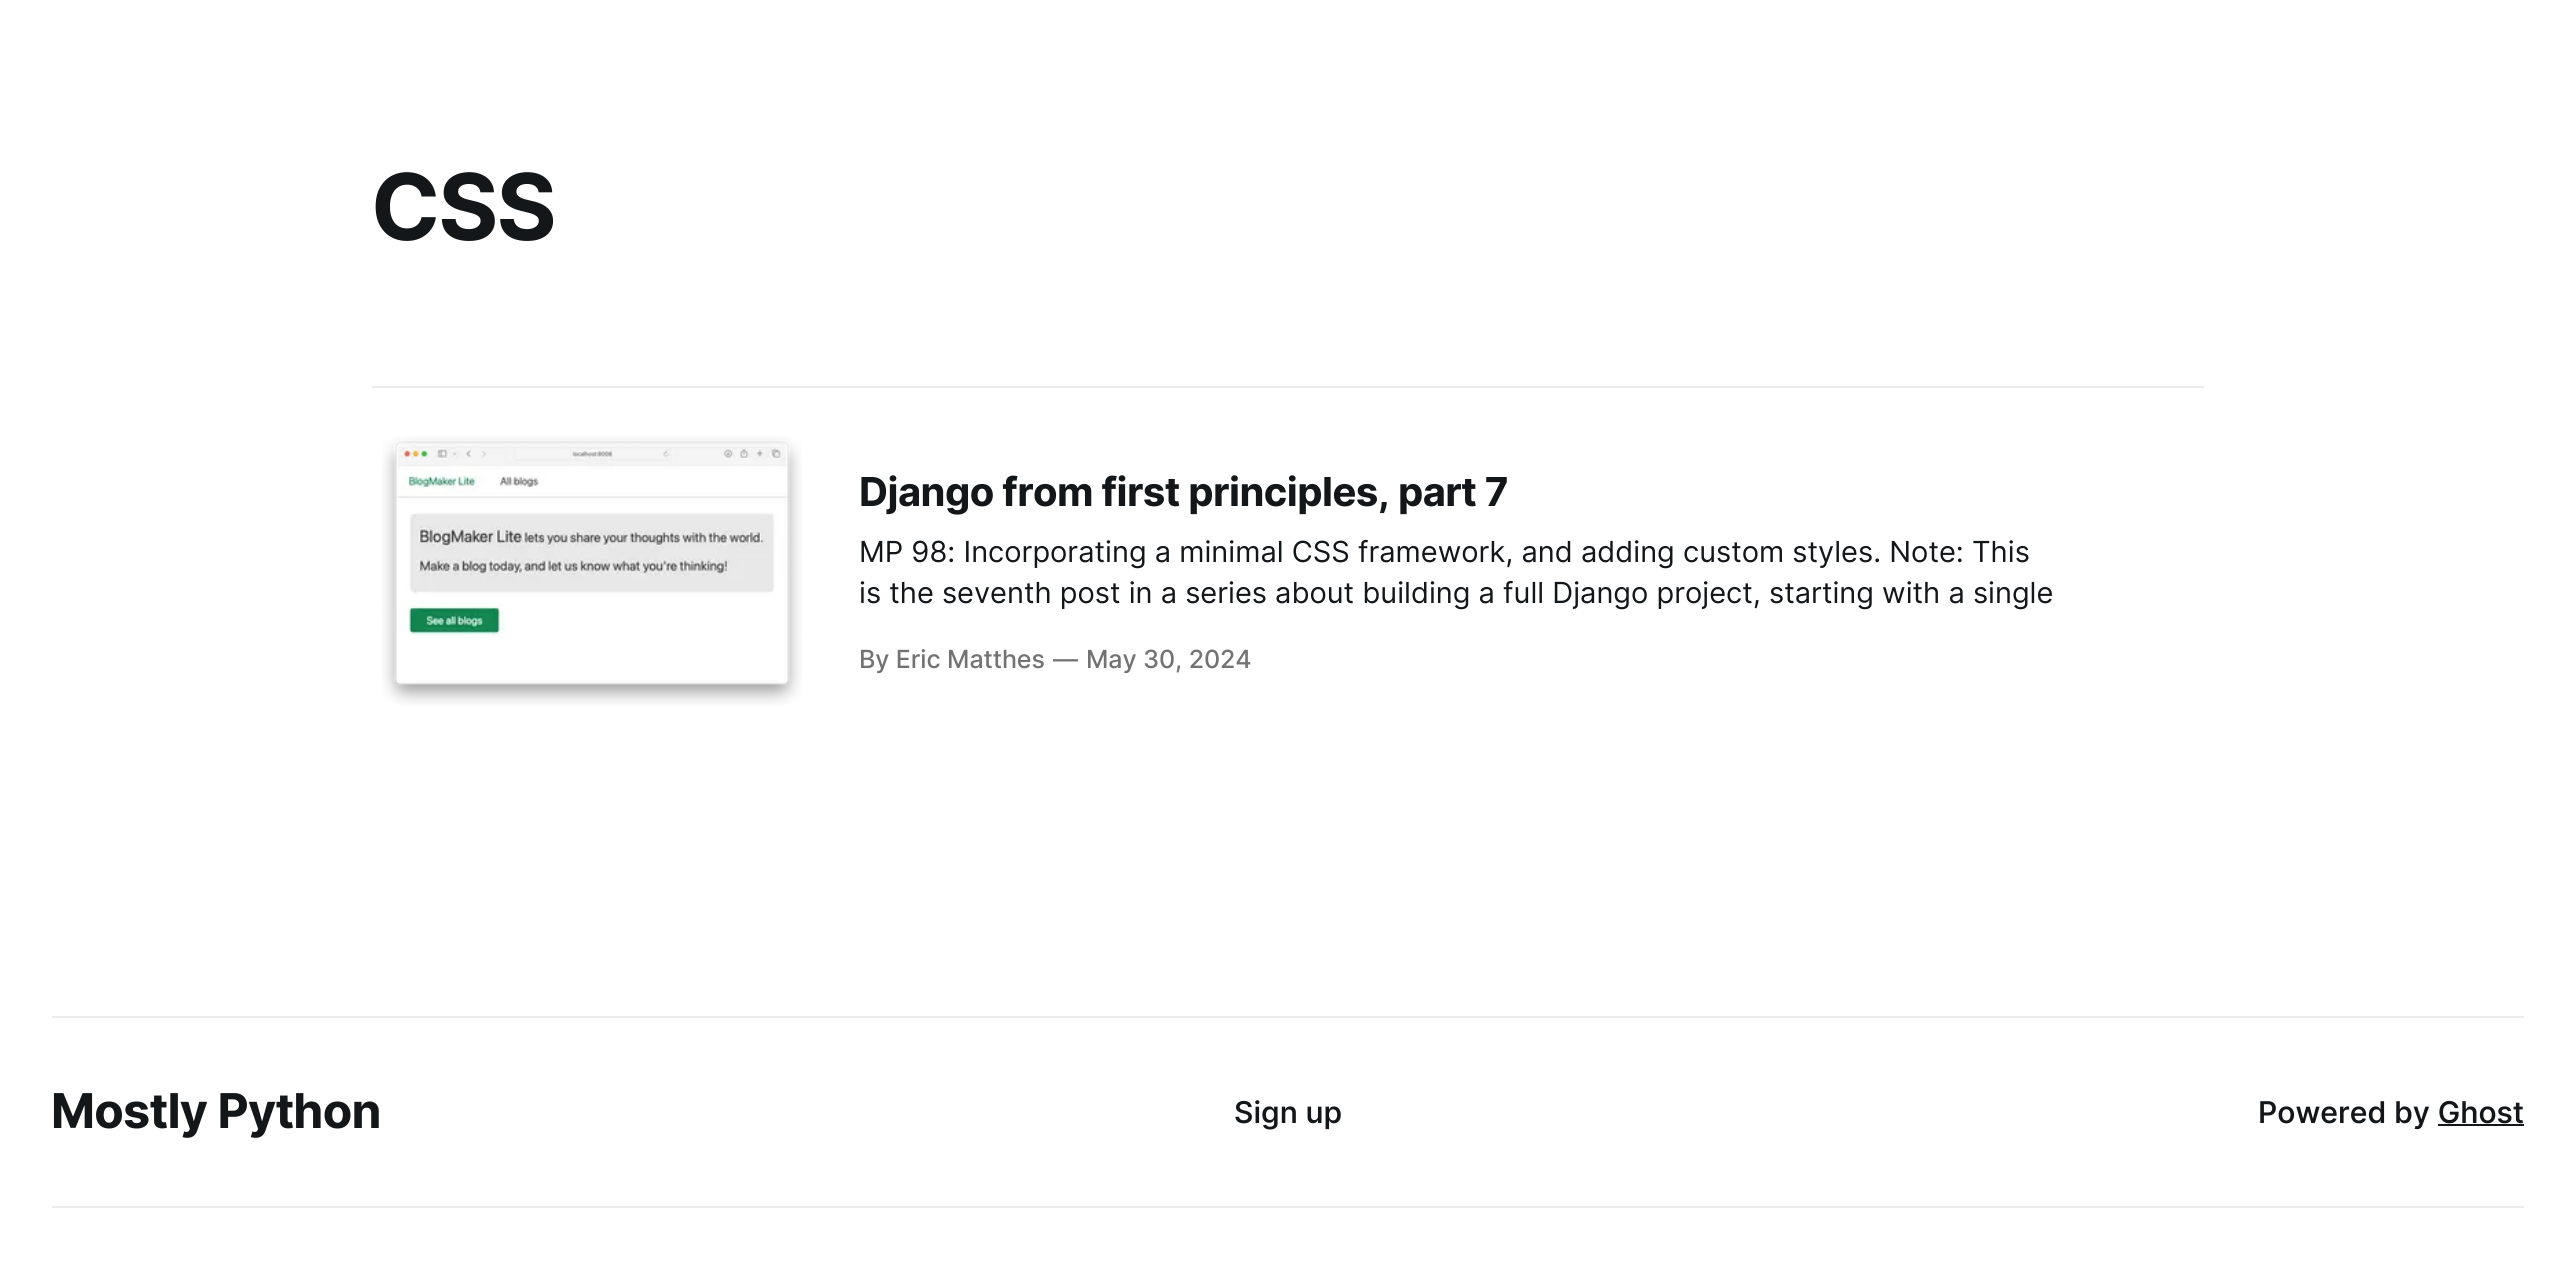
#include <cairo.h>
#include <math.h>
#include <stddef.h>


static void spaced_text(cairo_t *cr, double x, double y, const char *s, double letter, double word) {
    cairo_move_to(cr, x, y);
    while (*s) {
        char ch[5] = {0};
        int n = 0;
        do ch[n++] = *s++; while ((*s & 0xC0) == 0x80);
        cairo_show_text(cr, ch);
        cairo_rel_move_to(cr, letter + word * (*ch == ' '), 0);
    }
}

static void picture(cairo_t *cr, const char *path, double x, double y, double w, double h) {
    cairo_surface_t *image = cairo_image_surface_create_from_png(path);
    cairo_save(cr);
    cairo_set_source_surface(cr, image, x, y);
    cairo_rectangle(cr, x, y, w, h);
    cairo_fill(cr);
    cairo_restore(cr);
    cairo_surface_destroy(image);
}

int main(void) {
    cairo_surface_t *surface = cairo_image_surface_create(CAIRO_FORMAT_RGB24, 2576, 1285);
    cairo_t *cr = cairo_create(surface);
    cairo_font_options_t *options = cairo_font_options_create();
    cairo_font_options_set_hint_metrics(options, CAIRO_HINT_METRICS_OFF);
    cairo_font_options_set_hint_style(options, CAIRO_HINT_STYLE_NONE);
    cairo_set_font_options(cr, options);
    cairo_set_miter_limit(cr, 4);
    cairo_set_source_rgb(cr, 1, 1, 1);
    cairo_paint(cr);
    cairo_set_source_rgb(cr, 0.922, 0.922, 0.922);
    cairo_rectangle(cr, 372, 386, 1832, 2);
    cairo_fill(cr);
    cairo_select_font_face(cr, "Inter", CAIRO_FONT_SLANT_NORMAL, CAIRO_FONT_WEIGHT_BOLD);
    cairo_set_font_size(cr, 92);
    cairo_set_source_rgb(cr, 0.082, 0.09, 0.102);
    spaced_text(cr, 371, 240, "CSS", -2, 0);
    picture(cr, "img1.png", 382, 436, 420, 270);
    cairo_select_font_face(cr, "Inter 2", CAIRO_FONT_SLANT_NORMAL, CAIRO_FONT_WEIGHT_BOLD);
    cairo_set_font_size(cr, 39.9);
    spaced_text(cr, 859, 506, "Django from first principles, part 7", -0.55, 0);
    cairo_select_font_face(cr, "Inter", CAIRO_FONT_SLANT_NORMAL, CAIRO_FONT_WEIGHT_NORMAL);
    cairo_set_font_size(cr, 29);
    cairo_move_to(cr, 859, 562);
    cairo_show_text(cr, "MP 98: Incorporating a minimal CSS framework, and adding custom styles. Note: This");
    cairo_move_to(cr, 859, 603);
    cairo_show_text(cr, "is the seventh post in a series about building a full Django project, starting with a single");
    cairo_select_font_face(cr, "Inter 2 Medium", CAIRO_FONT_SLANT_NORMAL, CAIRO_FONT_WEIGHT_NORMAL);
    cairo_set_font_size(cr, 25);
    cairo_set_source_rgb(cr, 0.451, 0.451, 0.451);
    spaced_text(cr, 859, 668, "By Eric Matthes", -0.1, 0);
    spaced_text(cr, 1053, 668, "—", -0.1, 0);
    spaced_text(cr, 1086, 668, "May 30, 2024", -0.1, 0);
    cairo_set_source_rgb(cr, 0.922, 0.922, 0.922);
    cairo_rectangle(cr, 52, 1016, 2472, 2);
    cairo_fill(cr);
    cairo_rectangle(cr, 52, 1206, 2472, 2);
    cairo_fill(cr);
    cairo_select_font_face(cr, "Inter 2", CAIRO_FONT_SLANT_NORMAL, CAIRO_FONT_WEIGHT_BOLD);
    cairo_set_font_size(cr, 48);
    cairo_set_source_rgb(cr, 0.082, 0.09, 0.102);
    spaced_text(cr, 51, 1128, "Mostly Python", -0.75, 0);
    cairo_select_font_face(cr, "Inter Medium", CAIRO_FONT_SLANT_NORMAL, CAIRO_FONT_WEIGHT_NORMAL);
    cairo_set_font_size(cr, 30);
    cairo_move_to(cr, 1234, 1123);
    cairo_show_text(cr, "Sign up");
    cairo_move_to(cr, 2258, 1123);
    cairo_show_text(cr, "Powered by Ghost");
    cairo_rectangle(cr, 2438, 1124, 86, 2);
    cairo_fill(cr);
    cairo_surface_write_to_png(surface, "page.png");
    cairo_font_options_destroy(options);
    cairo_destroy(cr);
    cairo_surface_destroy(surface);
    return 0;
}
